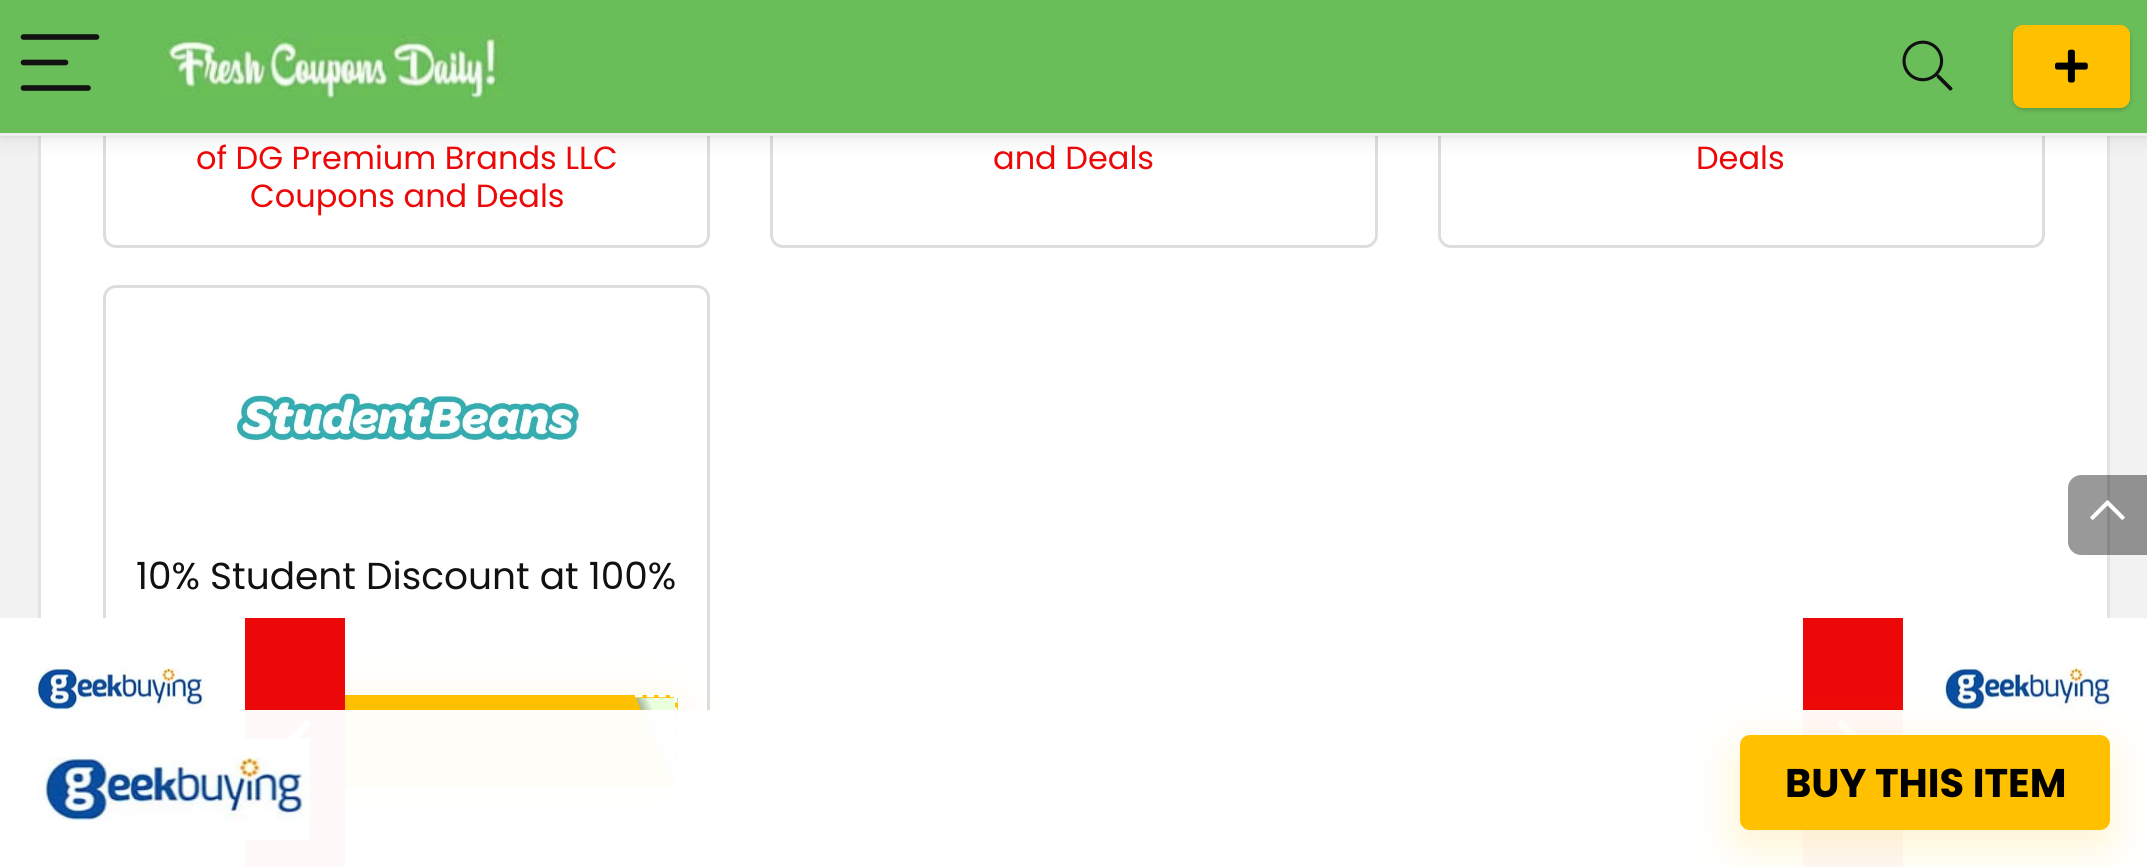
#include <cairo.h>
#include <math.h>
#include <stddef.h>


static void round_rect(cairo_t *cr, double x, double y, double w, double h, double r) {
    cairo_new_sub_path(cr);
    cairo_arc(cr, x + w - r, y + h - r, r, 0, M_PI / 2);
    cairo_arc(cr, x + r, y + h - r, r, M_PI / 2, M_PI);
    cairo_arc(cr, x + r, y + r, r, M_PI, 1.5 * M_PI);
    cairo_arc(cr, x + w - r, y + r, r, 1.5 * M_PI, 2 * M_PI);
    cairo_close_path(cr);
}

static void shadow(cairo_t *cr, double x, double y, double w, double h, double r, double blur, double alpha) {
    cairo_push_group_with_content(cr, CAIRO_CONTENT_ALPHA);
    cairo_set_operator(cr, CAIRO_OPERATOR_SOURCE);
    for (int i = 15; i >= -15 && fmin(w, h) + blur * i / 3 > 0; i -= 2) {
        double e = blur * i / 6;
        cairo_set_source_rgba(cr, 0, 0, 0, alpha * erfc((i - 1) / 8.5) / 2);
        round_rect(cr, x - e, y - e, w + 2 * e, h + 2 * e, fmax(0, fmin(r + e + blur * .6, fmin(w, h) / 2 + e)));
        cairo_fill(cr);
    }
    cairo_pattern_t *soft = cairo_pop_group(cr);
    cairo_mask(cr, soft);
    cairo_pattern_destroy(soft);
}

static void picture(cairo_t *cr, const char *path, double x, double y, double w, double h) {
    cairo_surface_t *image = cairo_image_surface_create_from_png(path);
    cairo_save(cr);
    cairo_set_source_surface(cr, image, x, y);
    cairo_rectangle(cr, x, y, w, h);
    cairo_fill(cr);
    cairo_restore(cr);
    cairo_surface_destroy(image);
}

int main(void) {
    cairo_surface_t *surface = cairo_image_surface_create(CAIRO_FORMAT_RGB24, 2147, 867);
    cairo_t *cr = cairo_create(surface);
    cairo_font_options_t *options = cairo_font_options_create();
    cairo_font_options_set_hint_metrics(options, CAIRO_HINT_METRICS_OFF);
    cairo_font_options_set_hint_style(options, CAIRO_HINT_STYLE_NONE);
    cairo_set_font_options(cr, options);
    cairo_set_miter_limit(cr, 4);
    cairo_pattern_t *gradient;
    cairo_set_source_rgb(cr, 0.949, 0.949, 0.949);
    cairo_paint(cr);
    cairo_set_source_rgb(cr, 1, 1, 1);
    cairo_rectangle(cr, 41, 136, 2066, 731);
    cairo_fill(cr);
    cairo_rectangle(cr, 39.5, -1.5, 2069, 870);
    cairo_set_source_rgb(cr, 0.89, 0.89, 0.89);
    cairo_set_line_width(cr, 3);
    cairo_stroke(cr);
    round_rect(cr, 104.5, -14.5, 604, 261, 11.5);
    cairo_set_source_rgb(cr, 0.867, 0.867, 0.867);
    cairo_stroke(cr);
    round_rect(cr, 771.5, -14.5, 605, 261, 11.5);
    cairo_stroke(cr);
    round_rect(cr, 1439.5, -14.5, 604, 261, 11.5);
    cairo_stroke(cr);
    cairo_rectangle(cr, -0.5, -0.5, 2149, 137);
    cairo_set_source_rgba(cr, 0, 0, 0, 0.03);
    cairo_stroke(cr);
    cairo_set_source_rgb(cr, 0, 0, 0);
    shadow(cr, 0, 3, 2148, 135, 0, 10, 0.1);
    cairo_set_source_rgb(cr, 0.933, 0.933, 0.933);
    cairo_rectangle(cr, 0, 133, 2147, 3);
    cairo_fill(cr);
    cairo_set_source_rgb(cr, 0.416, 0.745, 0.349);
    cairo_rectangle(cr, 0, 0, 2147, 133);
    cairo_fill(cr);
    cairo_new_path(cr);
    cairo_move_to(cr, 23.5, 37);
    cairo_line_to(cr, 96.5, 37);
    cairo_set_source_rgb(cr, 0.067, 0.067, 0.067);
    cairo_set_line_width(cr, 5.6);
    cairo_set_line_cap(cr, CAIRO_LINE_CAP_ROUND);
    cairo_stroke(cr);
    cairo_new_path(cr);
    cairo_move_to(cr, 23.5, 62.5);
    cairo_line_to(cr, 65.5, 62.5);
    cairo_stroke(cr);
    cairo_new_path(cr);
    cairo_move_to(cr, 23.5, 88);
    cairo_line_to(cr, 88, 88);
    cairo_stroke(cr);
    picture(cr, "img1.png", 162, 35, 344, 63);
    picture(cr, "img2.png", 1902, 40, 51, 51);
    cairo_set_source_rgb(cr, 0, 0, 0);
    shadow(cr, 2013, 28, 117, 82, 10, 2.5, 0.2);
    cairo_set_source_rgb(cr, 1, 0.753, 0);
    round_rect(cr, 2014.5, 26.5, 114, 80, 8.5);
    cairo_fill_preserve(cr);
    cairo_set_line_width(cr, 3);
    cairo_set_line_cap(cr, CAIRO_LINE_CAP_BUTT);
    cairo_stroke(cr);
    picture(cr, "img3.png", 2055, 49, 33, 34);
    cairo_select_font_face(cr, "Poppins", CAIRO_FONT_SLANT_NORMAL, CAIRO_FONT_WEIGHT_NORMAL);
    cairo_set_font_size(cr, 32);
    cairo_set_source_rgb(cr, 0.922, 0.035, 0.035);
    cairo_move_to(cr, 196, 169);
    cairo_show_text(cr, "of DG Premium Brands LLC");
    cairo_move_to(cr, 250, 207);
    cairo_show_text(cr, "Coupons and Deals");
    cairo_move_to(cr, 993, 169);
    cairo_show_text(cr, "and Deals");
    cairo_move_to(cr, 1696, 169);
    cairo_show_text(cr, "Deals");
    round_rect(cr, 104.5, 286.5, 604, 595, 11.5);
    cairo_set_source_rgb(cr, 0.867, 0.867, 0.867);
    cairo_stroke(cr);
    picture(cr, "img4.png", 234, 390, 347, 51);
    cairo_set_font_size(cr, 37.5);
    cairo_set_source_rgb(cr, 0.067, 0.067, 0.067);
    cairo_move_to(cr, 136, 589);
    cairo_show_text(cr, "10% Student Discount at 100%");
    cairo_set_source_rgb(cr, 1, 0.753, 0);
    shadow(cr, 133, 710, 542, 93, 10, 24, 0.2);
    cairo_set_source_rgb(cr, 1, 0.753, 0);
    round_rect(cr, 135, 695, 543, 93, 10);
    cairo_fill(cr);
    gradient = cairo_pattern_create_linear(621, 758, 689, 729);
    cairo_pattern_add_color_stop_rgba(gradient, 0, 0, 0, 0, 0);
    cairo_pattern_add_color_stop_rgba(gradient, 0.5, 0.651, 0.718, 0.616, 0);
    cairo_pattern_add_color_stop_rgba(gradient, 0.51, 0.651, 0.718, 0.616, 1);
    cairo_pattern_add_color_stop_rgba(gradient, 0.66, 0.914, 1, 0.867, 1);
    cairo_set_source(cr, gradient);
    cairo_pattern_destroy(gradient);
    cairo_rectangle(cr, 636, 698, 39, 91);
    cairo_fill(cr);
    gradient = cairo_pattern_create_linear(661, 758, 729, 729);
    cairo_pattern_add_color_stop_rgba(gradient, 0, 0, 0, 0, 0);
    cairo_pattern_add_color_stop_rgba(gradient, 0.5, 0.651, 0.718, 0.616, 0);
    cairo_pattern_add_color_stop_rgba(gradient, 0.51, 0.651, 0.718, 0.616, 1);
    cairo_pattern_add_color_stop_rgba(gradient, 0.66, 0.914, 1, 0.867, 1);
    cairo_set_source(cr, gradient);
    cairo_pattern_destroy(gradient);
    cairo_rectangle(cr, 677, 698, 1, 4);
    cairo_fill(cr);
    cairo_new_path(cr);
    cairo_move_to(cr, 635, 696);
    cairo_line_to(cr, 677.5, 696);
    cairo_set_source_rgb(cr, 1, 1, 1);
    cairo_set_line_width(cr, 2.5);
    cairo_set_dash(cr, (double[]){7.5, 4.17}, 2, 0);
    cairo_stroke(cr);
    cairo_new_path(cr);
    cairo_move_to(cr, 676, 695);
    cairo_line_to(cr, 676, 790);
    cairo_set_dash(cr, (double[]){7.5, 5}, 2, 0);
    cairo_stroke(cr);
    cairo_set_source_rgb(cr, 0.922, 0.035, 0.035);
    cairo_rectangle(cr, 245, 618, 100, 249);
    cairo_fill(cr);
    cairo_set_source_rgb(cr, 1, 1, 1);
    cairo_rectangle(cr, 0, 618, 245, 249);
    cairo_fill(cr);
    picture(cr, "img5.png", 32, 667, 174, 43);
    picture(cr, "img6.png", 288, 720, 24, 43);
    cairo_set_source_rgb(cr, 0.922, 0.035, 0.035);
    cairo_rectangle(cr, 1803, 618, 100, 249);
    cairo_fill(cr);
    picture(cr, "img7.png", 1837, 720, 21, 15);
    cairo_set_source_rgb(cr, 1, 1, 1);
    cairo_rectangle(cr, 2107, 618, 40, 249);
    cairo_fill(cr);
    picture(cr, "img8.png", 1940, 667, 173, 43);
    cairo_set_source_rgba(cr, 1, 1, 1, 0.97);
    cairo_rectangle(cr, 245, 710, 1658, 157);
    cairo_fill(cr);
    picture(cr, "img9.png", 37, 738, 273, 102);
    cairo_set_source_rgb(cr, 1, 0.753, 0);
    shadow(cr, 1738, 750, 370, 95, 10, 24, 0.2);
    cairo_set_source_rgb(cr, 1, 0.753, 0);
    round_rect(cr, 1740, 735, 370, 95, 10);
    cairo_fill(cr);
    cairo_select_font_face(cr, "Poppins", CAIRO_FONT_SLANT_NORMAL, CAIRO_FONT_WEIGHT_BOLD);
    cairo_set_font_size(cr, 40);
    cairo_set_source_rgb(cr, 0, 0, 0);
    cairo_move_to(cr, 1785, 797);
    cairo_show_text(cr, "BUY THIS ITEM");
    cairo_set_source_rgba(cr, 0, 0, 0, 0.4);
    cairo_new_path(cr);
    cairo_move_to(cr, 2081, 475);
    cairo_line_to(cr, 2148, 475);
    cairo_line_to(cr, 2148, 555);
    cairo_line_to(cr, 2081, 555);
    cairo_curve_to(cr, 2074, 555, 2068, 549, 2068, 542);
    cairo_line_to(cr, 2068, 488);
    cairo_curve_to(cr, 2068, 481, 2074, 475, 2081, 475);
    cairo_close_path(cr);
    cairo_fill(cr);
    picture(cr, "img10.png", 2090, 500, 35, 20);
    cairo_surface_write_to_png(surface, "page.png");
    cairo_font_options_destroy(options);
    cairo_destroy(cr);
    cairo_surface_destroy(surface);
    return 0;
}
